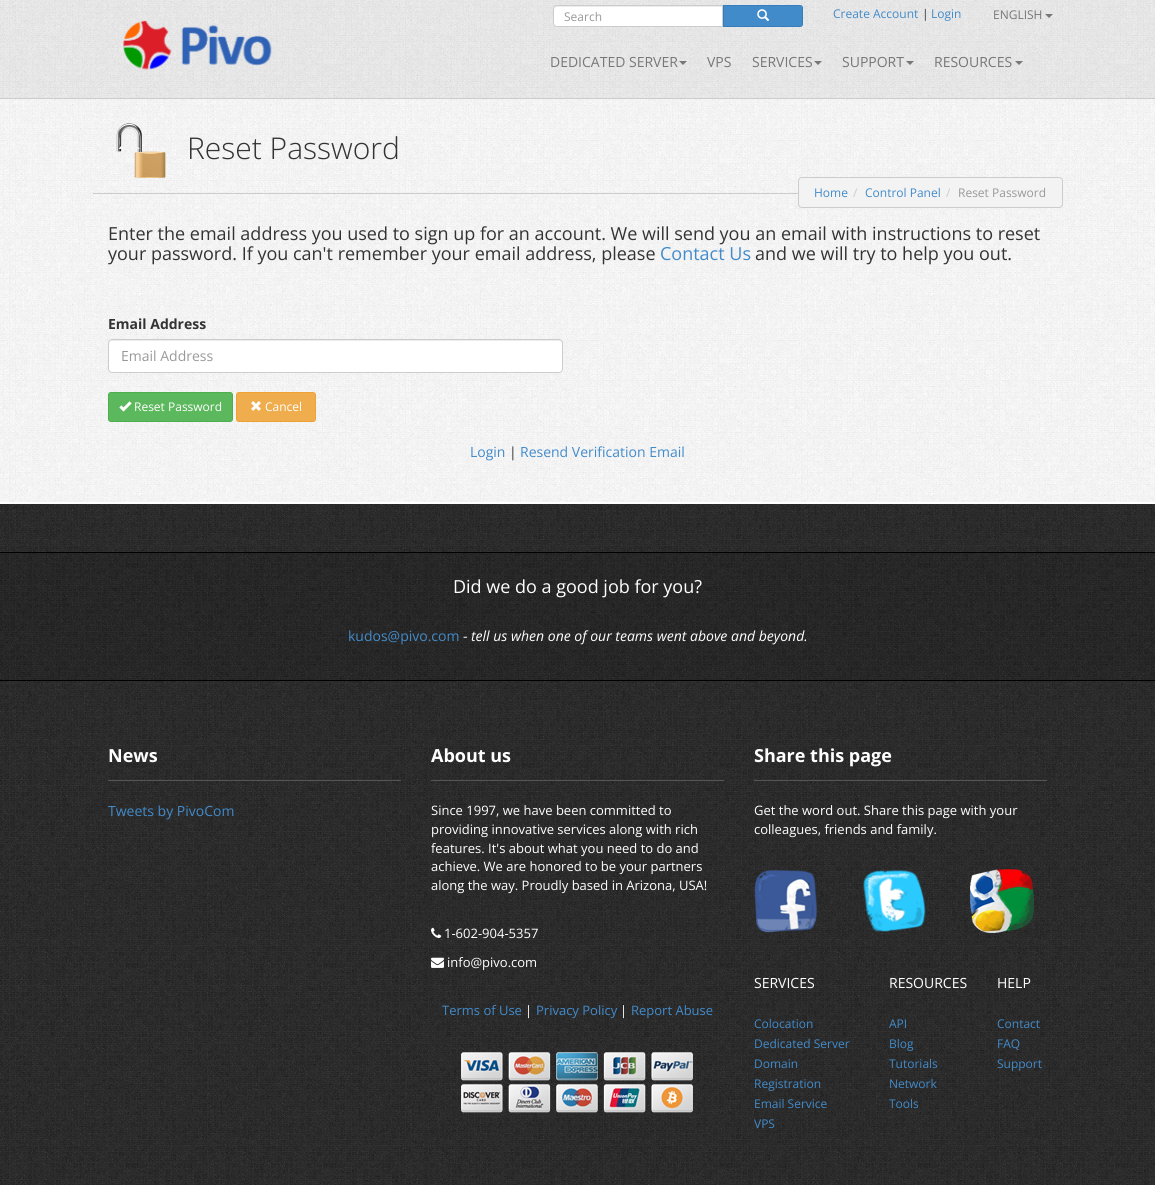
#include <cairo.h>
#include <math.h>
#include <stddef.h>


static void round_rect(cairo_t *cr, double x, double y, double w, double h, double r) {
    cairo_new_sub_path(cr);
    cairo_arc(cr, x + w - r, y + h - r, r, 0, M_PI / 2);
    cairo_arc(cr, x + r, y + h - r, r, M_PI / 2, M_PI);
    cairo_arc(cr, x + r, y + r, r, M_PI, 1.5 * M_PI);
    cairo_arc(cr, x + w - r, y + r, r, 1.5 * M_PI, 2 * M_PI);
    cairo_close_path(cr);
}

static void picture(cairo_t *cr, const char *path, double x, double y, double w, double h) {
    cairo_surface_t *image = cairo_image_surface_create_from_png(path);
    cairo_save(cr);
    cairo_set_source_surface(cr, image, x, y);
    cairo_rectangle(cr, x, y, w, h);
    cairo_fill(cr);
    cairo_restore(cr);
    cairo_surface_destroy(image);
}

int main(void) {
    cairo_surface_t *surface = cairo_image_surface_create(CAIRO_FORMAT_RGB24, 1155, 1185);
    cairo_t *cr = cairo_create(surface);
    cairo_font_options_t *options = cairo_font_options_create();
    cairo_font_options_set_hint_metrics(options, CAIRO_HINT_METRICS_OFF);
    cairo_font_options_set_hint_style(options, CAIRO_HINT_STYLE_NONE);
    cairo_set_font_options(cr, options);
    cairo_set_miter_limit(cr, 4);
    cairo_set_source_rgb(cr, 1, 1, 1);
    cairo_paint(cr);
    picture(cr, "img1.png", 0, 0, 1155, 98);
    cairo_set_source_rgb(cr, 0.8, 0.8, 0.8);
    cairo_rectangle(cr, 0, 98, 1155, 1);
    cairo_fill(cr);
    cairo_set_source_rgb(cr, 1, 1, 1);
    cairo_new_path(cr);
    cairo_move_to(cr, 557, 5);
    cairo_line_to(cr, 723, 5);
    cairo_line_to(cr, 723, 27);
    cairo_line_to(cr, 557, 27);
    cairo_curve_to(cr, 555, 27, 553, 25, 553, 23);
    cairo_line_to(cr, 553, 9);
    cairo_curve_to(cr, 553, 7, 555, 5, 557, 5);
    cairo_close_path(cr);
    cairo_fill(cr);
    cairo_set_source_rgb(cr, 0.925, 0.925, 0.925);
    cairo_new_path(cr);
    cairo_move_to(cr, 557, 7);
    cairo_line_to(cr, 722, 7);
    cairo_line_to(cr, 722, 6);
    cairo_line_to(cr, 556, 6);
    cairo_curve_to(cr, 554, 6, 554, 8, 554, 10);
    cairo_curve_to(cr, 554, 8, 555, 7, 557, 7);
    cairo_close_path(cr);
    cairo_fill(cr);
    cairo_new_path(cr);
    cairo_move_to(cr, 557, 5.5);
    cairo_line_to(cr, 722.5, 5.5);
    cairo_line_to(cr, 722.5, 26.5);
    cairo_line_to(cr, 557, 26.5);
    cairo_curve_to(cr, 555, 26.5, 553.5, 25, 553.5, 23);
    cairo_line_to(cr, 553.5, 9);
    cairo_curve_to(cr, 553.5, 7, 555, 5.5, 557, 5.5);
    cairo_close_path(cr);
    cairo_set_source_rgb(cr, 0.8, 0.8, 0.8);
    cairo_set_line_width(cr, 1);
    cairo_stroke(cr);
    cairo_select_font_face(cr, "Open Sans", CAIRO_FONT_SLANT_NORMAL, CAIRO_FONT_WEIGHT_NORMAL);
    cairo_set_font_size(cr, 12);
    cairo_set_source_rgb(cr, 0.6, 0.6, 0.6);
    cairo_move_to(cr, 564, 21);
    cairo_show_text(cr, "Search");
    cairo_set_source_rgb(cr, 0.259, 0.545, 0.792);
    cairo_new_path(cr);
    cairo_move_to(cr, 723.5, 5.5);
    cairo_line_to(cr, 800, 5.5);
    cairo_curve_to(cr, 801.5, 5.5, 802.5, 6.5, 802.5, 8);
    cairo_line_to(cr, 802.5, 24);
    cairo_curve_to(cr, 802.5, 25.5, 801.5, 26.5, 800, 26.5);
    cairo_line_to(cr, 723.5, 26.5);
    cairo_close_path(cr);
    cairo_fill_preserve(cr);
    cairo_set_source_rgb(cr, 0.208, 0.494, 0.741);
    cairo_stroke(cr);
    picture(cr, "img2.png", 757, 9, 13, 13);
    cairo_set_source_rgb(cr, 0.259, 0.545, 0.792);
    cairo_move_to(cr, 833, 18);
    cairo_show_text(cr, "Create Account");
    cairo_set_source_rgb(cr, 0.2, 0.2, 0.2);
    cairo_move_to(cr, 922, 18);
    cairo_show_text(cr, "|");
    cairo_set_source_rgb(cr, 0.259, 0.545, 0.792);
    cairo_move_to(cr, 931, 18);
    cairo_show_text(cr, "Login");
    cairo_set_source_rgb(cr, 0.467, 0.467, 0.467);
    cairo_move_to(cr, 993, 19);
    cairo_show_text(cr, "ENGLISH");
    cairo_new_path(cr);
    cairo_move_to(cr, 1045, 14);
    cairo_line_to(cr, 1053, 14);
    cairo_line_to(cr, 1049, 18);
    cairo_close_path(cr);
    cairo_fill(cr);
    picture(cr, "img3.png", 123, 20, 149, 50);
    cairo_set_font_size(cr, 14);
    cairo_move_to(cr, 550, 67);
    cairo_show_text(cr, "DEDICATED SERVER");
    cairo_new_path(cr);
    cairo_move_to(cr, 679, 61);
    cairo_line_to(cr, 687, 61);
    cairo_line_to(cr, 683, 65);
    cairo_close_path(cr);
    cairo_fill(cr);
    cairo_move_to(cr, 707, 67);
    cairo_show_text(cr, "VPS");
    cairo_move_to(cr, 752, 67);
    cairo_show_text(cr, "SERVICES");
    cairo_new_path(cr);
    cairo_move_to(cr, 814, 61);
    cairo_line_to(cr, 822, 61);
    cairo_line_to(cr, 818, 65);
    cairo_close_path(cr);
    cairo_fill(cr);
    cairo_move_to(cr, 842, 67);
    cairo_show_text(cr, "SUPPORT");
    cairo_new_path(cr);
    cairo_move_to(cr, 906, 61);
    cairo_line_to(cr, 914, 61);
    cairo_line_to(cr, 910, 65);
    cairo_close_path(cr);
    cairo_fill(cr);
    cairo_move_to(cr, 934, 67);
    cairo_show_text(cr, "RESOURCES");
    cairo_new_path(cr);
    cairo_move_to(cr, 1015, 61);
    cairo_line_to(cr, 1023, 61);
    cairo_line_to(cr, 1019, 65);
    cairo_close_path(cr);
    cairo_fill(cr);
    picture(cr, "img4.png", 0, 99, 1155, 403);
    cairo_set_source_rgb(cr, 0.8, 0.8, 0.8);
    cairo_rectangle(cr, 93, 193, 705, 1);
    cairo_fill(cr);
    picture(cr, "img5.png", 116, 123, 50, 55);
    cairo_select_font_face(cr, "Open Sans Light", CAIRO_FONT_SLANT_NORMAL, CAIRO_FONT_WEIGHT_NORMAL);
    cairo_set_font_size(cr, 30);
    cairo_set_source_rgb(cr, 0.2, 0.2, 0.2);
    cairo_move_to(cr, 187, 159);
    cairo_show_text(cr, "Reset Password");
    cairo_set_source_rgb(cr, 0.953, 0.953, 0.953);
    round_rect(cr, 798.5, 177.5, 264, 30, 3.5);
    cairo_fill_preserve(cr);
    cairo_set_source_rgb(cr, 0.8, 0.8, 0.8);
    cairo_stroke(cr);
    cairo_select_font_face(cr, "Open Sans", CAIRO_FONT_SLANT_NORMAL, CAIRO_FONT_WEIGHT_NORMAL);
    cairo_set_font_size(cr, 12);
    cairo_set_source_rgb(cr, 0.259, 0.545, 0.792);
    cairo_move_to(cr, 814, 197);
    cairo_show_text(cr, "Home");
    cairo_set_source_rgb(cr, 0.8, 0.8, 0.8);
    cairo_move_to(cr, 853, 197);
    cairo_show_text(cr, "/");
    cairo_set_source_rgb(cr, 0.259, 0.545, 0.792);
    cairo_move_to(cr, 865, 197);
    cairo_show_text(cr, "Control Panel");
    cairo_set_source_rgb(cr, 0.8, 0.8, 0.8);
    cairo_move_to(cr, 946, 197);
    cairo_show_text(cr, "/");
    cairo_set_source_rgb(cr, 0.6, 0.6, 0.6);
    cairo_move_to(cr, 958, 197);
    cairo_show_text(cr, "Reset Password");
    cairo_set_font_size(cr, 18);
    cairo_set_source_rgb(cr, 0.2, 0.2, 0.2);
    cairo_move_to(cr, 108, 240);
    cairo_show_text(cr, "Enter the email address you used to sign up for an account. We will send you an email with instructions to reset");
    cairo_move_to(cr, 108, 260);
    cairo_show_text(cr, "your password. If you can't remember your email address, please");
    cairo_set_source_rgb(cr, 0.259, 0.545, 0.792);
    cairo_move_to(cr, 660, 260);
    cairo_show_text(cr, "Contact Us");
    cairo_set_source_rgb(cr, 0.2, 0.2, 0.2);
    cairo_move_to(cr, 755, 260);
    cairo_show_text(cr, "and we will try to help you out.");
    cairo_select_font_face(cr, "Open Sans", CAIRO_FONT_SLANT_NORMAL, CAIRO_FONT_WEIGHT_BOLD);
    cairo_set_font_size(cr, 14);
    cairo_move_to(cr, 108, 329);
    cairo_show_text(cr, "Email Address");
    cairo_set_source_rgb(cr, 1, 1, 1);
    round_rect(cr, 108, 339, 455, 34, 4);
    cairo_fill(cr);
    cairo_set_source_rgb(cr, 0.925, 0.925, 0.925);
    cairo_new_path(cr);
    cairo_move_to(cr, 112, 341);
    cairo_line_to(cr, 559, 341);
    cairo_curve_to(cr, 561, 341, 562, 342, 562, 344);
    cairo_curve_to(cr, 562, 342, 562, 341, 560, 340);
    cairo_line_to(cr, 111, 340);
    cairo_line_to(cr, 109, 342);
    cairo_line_to(cr, 109, 344);
    cairo_curve_to(cr, 109, 342, 110, 341, 112, 341);
    cairo_close_path(cr);
    cairo_fill(cr);
    round_rect(cr, 108.5, 339.5, 454, 33, 3.5);
    cairo_set_source_rgb(cr, 0.8, 0.8, 0.8);
    cairo_stroke(cr);
    cairo_select_font_face(cr, "Open Sans", CAIRO_FONT_SLANT_NORMAL, CAIRO_FONT_WEIGHT_NORMAL);
    cairo_set_source_rgb(cr, 0.6, 0.6, 0.6);
    cairo_move_to(cr, 121, 361);
    cairo_show_text(cr, "Email Address");
    cairo_set_source_rgb(cr, 0.361, 0.722, 0.361);
    round_rect(cr, 108.5, 392.5, 124, 29, 2.5);
    cairo_fill_preserve(cr);
    cairo_set_source_rgb(cr, 0.298, 0.682, 0.298);
    cairo_stroke(cr);
    picture(cr, "img6.png", 119, 401, 13, 11);
    cairo_set_font_size(cr, 12);
    cairo_set_source_rgb(cr, 1, 1, 1);
    cairo_move_to(cr, 134, 411);
    cairo_show_text(cr, "Reset Password");
    cairo_set_source_rgb(cr, 0.941, 0.678, 0.306);
    round_rect(cr, 236.5, 392.5, 79, 29, 2.5);
    cairo_fill_preserve(cr);
    cairo_set_source_rgb(cr, 0.933, 0.635, 0.212);
    cairo_stroke(cr);
    picture(cr, "img7.png", 251, 401, 10, 10);
    cairo_set_source_rgb(cr, 1, 1, 1);
    cairo_move_to(cr, 265, 411);
    cairo_show_text(cr, "Cancel");
    cairo_set_font_size(cr, 14);
    cairo_set_source_rgb(cr, 0.259, 0.545, 0.792);
    cairo_move_to(cr, 470, 457);
    cairo_show_text(cr, "Login");
    cairo_set_source_rgb(cr, 0.2, 0.2, 0.2);
    cairo_move_to(cr, 509, 457);
    cairo_show_text(cr, "|");
    cairo_set_source_rgb(cr, 0.259, 0.545, 0.792);
    cairo_move_to(cr, 520, 457);
    cairo_show_text(cr, "Resend Verification Email");
    picture(cr, "img8.png", 0, 504, 1155, 681);
    cairo_set_source_rgba(cr, 0, 0, 0, 0.1);
    cairo_rectangle(cr, 0, 553, 1155, 127);
    cairo_fill(cr);
    cairo_set_source_rgb(cr, 0, 0, 0);
    cairo_rectangle(cr, 0, 552, 1155, 1);
    cairo_fill(cr);
    cairo_rectangle(cr, 0, 680, 1155, 1);
    cairo_fill(cr);
    cairo_set_font_size(cr, 18);
    cairo_set_source_rgb(cr, 1, 1, 1);
    cairo_move_to(cr, 453, 593);
    cairo_show_text(cr, "Did we do a good job for you?");
    cairo_set_font_size(cr, 14);
    cairo_set_source_rgb(cr, 0.259, 0.545, 0.792);
    cairo_move_to(cr, 348, 641);
    cairo_show_text(cr, "kudos@pivo.com");
    cairo_set_source_rgb(cr, 1, 1, 1);
    cairo_move_to(cr, 463, 641);
    cairo_show_text(cr, "-");
    cairo_select_font_face(cr, "Open Sans", CAIRO_FONT_SLANT_ITALIC, CAIRO_FONT_WEIGHT_NORMAL);
    cairo_move_to(cr, 471, 641);
    cairo_show_text(cr, "tell us when one of our teams went above and beyond.");
    cairo_set_source_rgb(cr, 0.333, 0.333, 0.333);
    cairo_rectangle(cr, 108, 780, 293, 1);
    cairo_fill(cr);
    cairo_select_font_face(cr, "Open Sans", CAIRO_FONT_SLANT_NORMAL, CAIRO_FONT_WEIGHT_BOLD);
    cairo_set_font_size(cr, 18);
    cairo_set_source_rgb(cr, 1, 1, 1);
    cairo_move_to(cr, 108, 762);
    cairo_show_text(cr, "News");
    cairo_select_font_face(cr, "Open Sans", CAIRO_FONT_SLANT_NORMAL, CAIRO_FONT_WEIGHT_NORMAL);
    cairo_set_font_size(cr, 14);
    cairo_set_source_rgb(cr, 0.259, 0.545, 0.792);
    cairo_move_to(cr, 108, 816);
    cairo_show_text(cr, "Tweets by PivoCom");
    cairo_set_source_rgb(cr, 0.333, 0.333, 0.333);
    cairo_rectangle(cr, 431, 780, 293, 1);
    cairo_fill(cr);
    cairo_select_font_face(cr, "Open Sans", CAIRO_FONT_SLANT_NORMAL, CAIRO_FONT_WEIGHT_BOLD);
    cairo_set_font_size(cr, 18);
    cairo_set_source_rgb(cr, 1, 1, 1);
    cairo_move_to(cr, 431, 762);
    cairo_show_text(cr, "About us");
    cairo_select_font_face(cr, "Open Sans", CAIRO_FONT_SLANT_NORMAL, CAIRO_FONT_WEIGHT_NORMAL);
    cairo_set_font_size(cr, 13);
    cairo_move_to(cr, 431, 815);
    cairo_show_text(cr, "Since 1997, we have been committed to");
    cairo_move_to(cr, 431, 834);
    cairo_show_text(cr, "providing innovative services along with rich");
    cairo_move_to(cr, 431, 853);
    cairo_show_text(cr, "features. It's about what you need to do and");
    cairo_move_to(cr, 431, 871);
    cairo_show_text(cr, "achieve. We are honored to be your partners");
    cairo_move_to(cr, 431, 890);
    cairo_show_text(cr, "along the way. Proudly based in Arizona, USA!");
    picture(cr, "img9.png", 431, 927, 11, 11);
    cairo_move_to(cr, 444, 938);
    cairo_show_text(cr, "1-602-904-5357");
    picture(cr, "img10.png", 431, 957, 13, 11);
    cairo_move_to(cr, 447, 967);
    cairo_show_text(cr, "info@pivo.com");
    cairo_set_source_rgb(cr, 0.259, 0.545, 0.792);
    cairo_move_to(cr, 442, 1015);
    cairo_show_text(cr, "Terms of Use");
    cairo_set_source_rgb(cr, 1, 1, 1);
    cairo_move_to(cr, 525, 1015);
    cairo_show_text(cr, "|");
    cairo_set_source_rgb(cr, 0.259, 0.545, 0.792);
    cairo_move_to(cr, 536, 1015);
    cairo_show_text(cr, "Privacy Policy");
    cairo_set_source_rgb(cr, 1, 1, 1);
    cairo_move_to(cr, 620, 1015);
    cairo_show_text(cr, "|");
    cairo_set_source_rgb(cr, 0.259, 0.545, 0.792);
    cairo_move_to(cr, 631, 1015);
    cairo_show_text(cr, "Report Abuse");
    picture(cr, "img11.png", 461, 1052, 232, 61);
    cairo_set_source_rgb(cr, 0.333, 0.333, 0.333);
    cairo_rectangle(cr, 754, 780, 293, 1);
    cairo_fill(cr);
    cairo_select_font_face(cr, "Open Sans", CAIRO_FONT_SLANT_NORMAL, CAIRO_FONT_WEIGHT_BOLD);
    cairo_set_font_size(cr, 18);
    cairo_set_source_rgb(cr, 1, 1, 1);
    cairo_move_to(cr, 754, 762);
    cairo_show_text(cr, "Share this page");
    cairo_select_font_face(cr, "Open Sans", CAIRO_FONT_SLANT_NORMAL, CAIRO_FONT_WEIGHT_NORMAL);
    cairo_set_font_size(cr, 13);
    cairo_move_to(cr, 754, 815);
    cairo_show_text(cr, "Get the word out. Share this page with your");
    cairo_move_to(cr, 754, 834);
    cairo_show_text(cr, "colleagues, friends and family.");
    picture(cr, "img12.png", 754, 869, 64, 64);
    picture(cr, "img13.png", 863, 870, 63, 62);
    picture(cr, "img14.png", 970, 869, 64, 64);
    cairo_set_font_size(cr, 14);
    cairo_move_to(cr, 754, 988);
    cairo_show_text(cr, "SERVICES");
    cairo_set_font_size(cr, 12);
    cairo_set_source_rgb(cr, 0.259, 0.545, 0.792);
    cairo_move_to(cr, 754, 1028);
    cairo_show_text(cr, "Colocation");
    cairo_move_to(cr, 754, 1048);
    cairo_show_text(cr, "Dedicated Server");
    cairo_move_to(cr, 754, 1068);
    cairo_show_text(cr, "Domain");
    cairo_move_to(cr, 754, 1088);
    cairo_show_text(cr, "Registration");
    cairo_move_to(cr, 754, 1108);
    cairo_show_text(cr, "Email Service");
    cairo_move_to(cr, 754, 1128);
    cairo_show_text(cr, "VPS");
    cairo_set_font_size(cr, 14);
    cairo_set_source_rgb(cr, 1, 1, 1);
    cairo_move_to(cr, 889, 988);
    cairo_show_text(cr, "RESOURCES");
    cairo_set_font_size(cr, 12);
    cairo_set_source_rgb(cr, 0.259, 0.545, 0.792);
    cairo_move_to(cr, 889, 1028);
    cairo_show_text(cr, "API");
    cairo_move_to(cr, 889, 1048);
    cairo_show_text(cr, "Blog");
    cairo_move_to(cr, 889, 1068);
    cairo_show_text(cr, "Tutorials");
    cairo_move_to(cr, 889, 1088);
    cairo_show_text(cr, "Network");
    cairo_move_to(cr, 889, 1108);
    cairo_show_text(cr, "Tools");
    cairo_set_font_size(cr, 14);
    cairo_set_source_rgb(cr, 1, 1, 1);
    cairo_move_to(cr, 997, 988);
    cairo_show_text(cr, "HELP");
    cairo_set_font_size(cr, 12);
    cairo_set_source_rgb(cr, 0.259, 0.545, 0.792);
    cairo_move_to(cr, 997, 1028);
    cairo_show_text(cr, "Contact");
    cairo_move_to(cr, 997, 1048);
    cairo_show_text(cr, "FAQ");
    cairo_move_to(cr, 997, 1068);
    cairo_show_text(cr, "Support");
    cairo_surface_write_to_png(surface, "page.png");
    cairo_font_options_destroy(options);
    cairo_destroy(cr);
    cairo_surface_destroy(surface);
    return 0;
}
